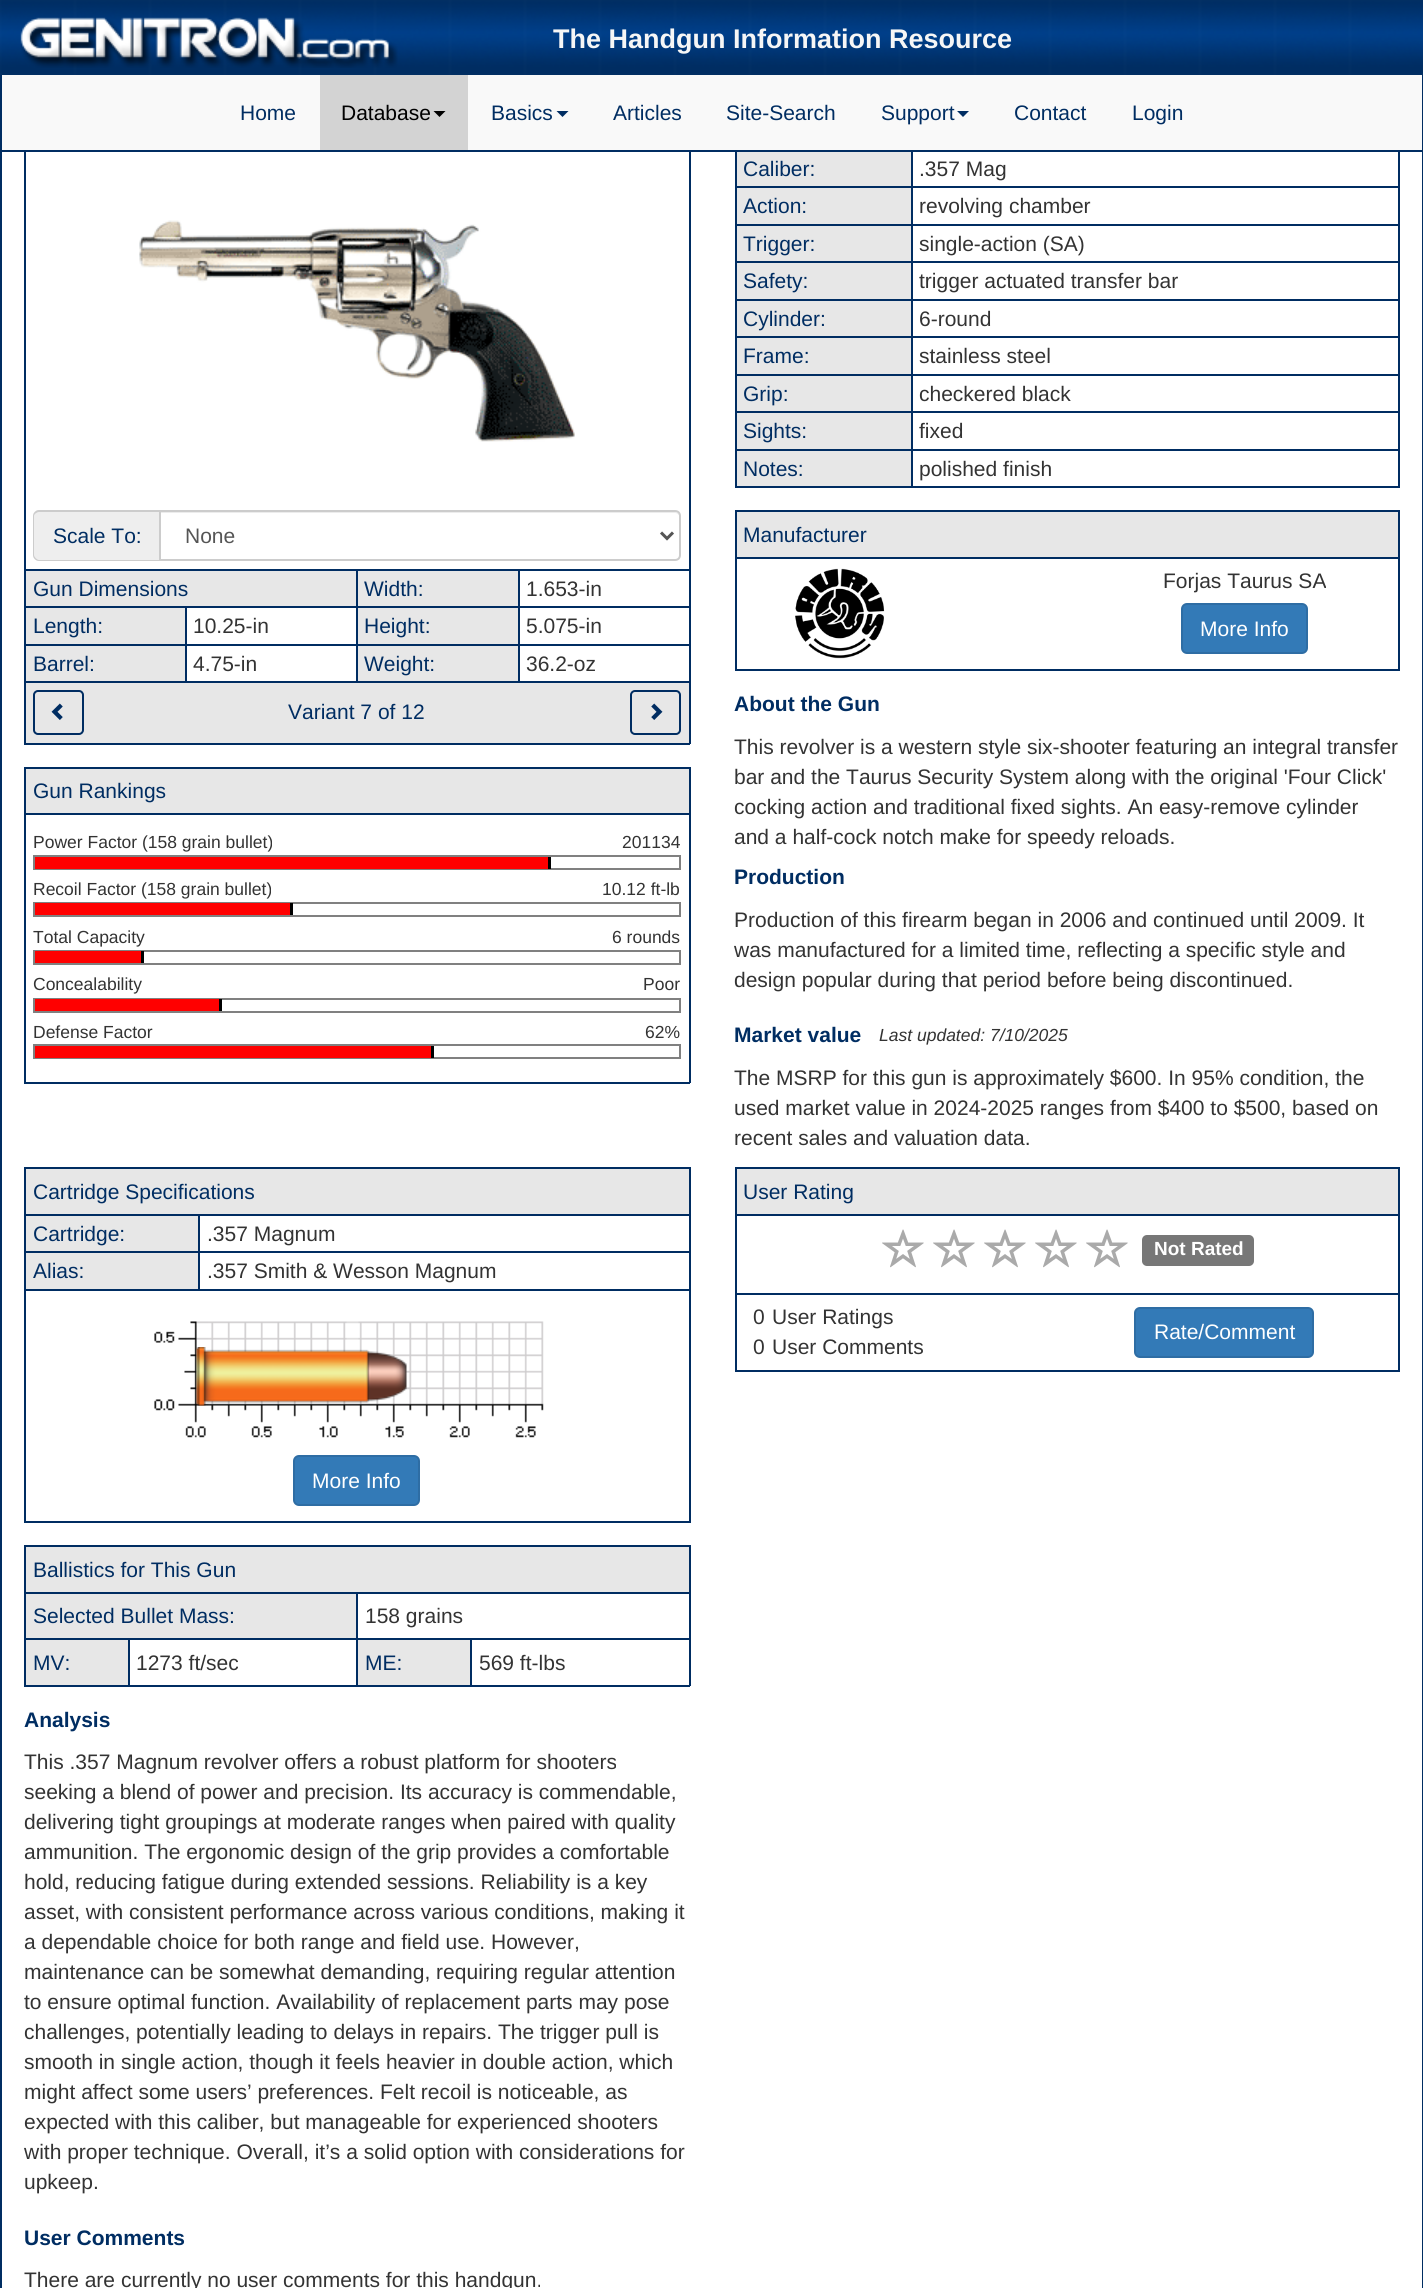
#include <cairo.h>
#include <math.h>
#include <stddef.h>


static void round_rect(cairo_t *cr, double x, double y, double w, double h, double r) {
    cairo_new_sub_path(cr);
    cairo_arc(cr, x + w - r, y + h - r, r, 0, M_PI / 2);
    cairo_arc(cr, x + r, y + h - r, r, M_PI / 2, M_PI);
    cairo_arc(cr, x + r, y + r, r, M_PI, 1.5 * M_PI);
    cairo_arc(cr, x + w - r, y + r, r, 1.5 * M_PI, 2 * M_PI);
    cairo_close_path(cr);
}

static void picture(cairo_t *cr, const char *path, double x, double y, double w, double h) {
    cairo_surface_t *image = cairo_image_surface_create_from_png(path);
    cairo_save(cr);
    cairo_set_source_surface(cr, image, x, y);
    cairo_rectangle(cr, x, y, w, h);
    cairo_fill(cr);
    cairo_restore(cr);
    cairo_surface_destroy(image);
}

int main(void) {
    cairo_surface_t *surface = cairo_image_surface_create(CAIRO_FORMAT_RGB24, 1423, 2288);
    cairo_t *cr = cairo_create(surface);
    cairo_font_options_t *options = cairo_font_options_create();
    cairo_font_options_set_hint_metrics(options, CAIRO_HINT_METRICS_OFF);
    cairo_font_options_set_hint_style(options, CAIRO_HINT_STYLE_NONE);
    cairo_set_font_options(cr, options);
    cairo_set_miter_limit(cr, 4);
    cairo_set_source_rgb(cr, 1, 1, 1);
    cairo_paint(cr);
    picture(cr, "img1.png", 0, 0, 1423, 75);
    picture(cr, "img2.png", 20, 17, 378, 51);
    cairo_select_font_face(cr, "Liberation Sans", CAIRO_FONT_SLANT_NORMAL, CAIRO_FONT_WEIGHT_BOLD);
    cairo_set_font_size(cr, 27);
    cairo_set_source_rgb(cr, 0.961, 0.961, 0.961);
    cairo_move_to(cr, 553, 48);
    cairo_show_text(cr, "The Handgun Information Resource");
    cairo_set_source_rgb(cr, 0, 0.176, 0.384);
    cairo_rectangle(cr, 1398, 152, 2, 336);
    cairo_fill(cr);
    cairo_rectangle(cr, 735, 486, 665, 2);
    cairo_fill(cr);
    cairo_rectangle(cr, 735, 152, 2, 336);
    cairo_fill(cr);
    cairo_rectangle(cr, 735, 186, 665, 2);
    cairo_fill(cr);
    cairo_rectangle(cr, 735, 224, 665, 2);
    cairo_fill(cr);
    cairo_rectangle(cr, 735, 261, 665, 2);
    cairo_fill(cr);
    cairo_rectangle(cr, 735, 299, 665, 2);
    cairo_fill(cr);
    cairo_rectangle(cr, 735, 336, 665, 2);
    cairo_fill(cr);
    cairo_rectangle(cr, 735, 374, 665, 2);
    cairo_fill(cr);
    cairo_rectangle(cr, 735, 411, 665, 2);
    cairo_fill(cr);
    cairo_rectangle(cr, 735, 449, 665, 2);
    cairo_fill(cr);
    cairo_rectangle(cr, 911, 449, 2, 39);
    cairo_fill(cr);
    cairo_rectangle(cr, 911, 411, 2, 39);
    cairo_fill(cr);
    cairo_rectangle(cr, 911, 374, 2, 39);
    cairo_fill(cr);
    cairo_rectangle(cr, 911, 336, 2, 39);
    cairo_fill(cr);
    cairo_rectangle(cr, 911, 299, 2, 39);
    cairo_fill(cr);
    cairo_rectangle(cr, 911, 261, 2, 39);
    cairo_fill(cr);
    cairo_rectangle(cr, 911, 224, 2, 39);
    cairo_fill(cr);
    cairo_rectangle(cr, 911, 149, 2, 76);
    cairo_fill(cr);
    cairo_set_source_rgb(cr, 0.973, 0.973, 0.973);
    cairo_rectangle(cr, 2, 75, 1420, 75);
    cairo_fill(cr);
    cairo_set_source_rgb(cr, 0, 0.176, 0.384);
    cairo_rectangle(cr, 1422, 75, 1, 77);
    cairo_fill(cr);
    cairo_rectangle(cr, 0, 150, 1423, 2);
    cairo_fill(cr);
    cairo_rectangle(cr, 0, 75, 2, 77);
    cairo_fill(cr);
    cairo_select_font_face(cr, "Liberation Sans", CAIRO_FONT_SLANT_NORMAL, CAIRO_FONT_WEIGHT_NORMAL);
    cairo_set_font_size(cr, 21);
    cairo_move_to(cr, 240, 120);
    cairo_show_text(cr, "Home");
    cairo_set_source_rgb(cr, 0.827, 0.827, 0.827);
    cairo_rectangle(cr, 320, 75, 148, 75);
    cairo_fill(cr);
    cairo_set_source_rgb(cr, 0, 0, 0);
    cairo_move_to(cr, 341, 120);
    cairo_show_text(cr, "Database");
    cairo_new_path(cr);
    cairo_move_to(cr, 433.5, 111);
    cairo_line_to(cr, 445.5, 111);
    cairo_line_to(cr, 439.5, 117);
    cairo_close_path(cr);
    cairo_fill(cr);
    cairo_set_source_rgb(cr, 0, 0.176, 0.384);
    cairo_move_to(cr, 491, 120);
    cairo_show_text(cr, "Basics");
    cairo_new_path(cr);
    cairo_move_to(cr, 556.5, 111);
    cairo_line_to(cr, 568.5, 111);
    cairo_line_to(cr, 562.5, 117);
    cairo_close_path(cr);
    cairo_fill(cr);
    cairo_move_to(cr, 613, 120);
    cairo_show_text(cr, "Articles");
    cairo_move_to(cr, 726, 120);
    cairo_show_text(cr, "Site-Search");
    cairo_move_to(cr, 881, 120);
    cairo_show_text(cr, "Support");
    cairo_new_path(cr);
    cairo_move_to(cr, 957, 111);
    cairo_line_to(cr, 969, 111);
    cairo_line_to(cr, 963, 117);
    cairo_close_path(cr);
    cairo_fill(cr);
    cairo_move_to(cr, 1014, 120);
    cairo_show_text(cr, "Contact");
    cairo_move_to(cr, 1132, 120);
    cairo_show_text(cr, "Login");
    cairo_rectangle(cr, 1422, 152, 1, 2136);
    cairo_fill(cr);
    cairo_rectangle(cr, 0, 152, 2, 2136);
    cairo_fill(cr);
    cairo_rectangle(cr, 689, 152, 2, 592);
    cairo_fill(cr);
    cairo_rectangle(cr, 24, 743, 666, 2);
    cairo_fill(cr);
    cairo_rectangle(cr, 24, 152, 2, 592);
    cairo_fill(cr);
    picture(cr, "img3.png", 139, 220, 436, 222);
    cairo_set_source_rgb(cr, 0.933, 0.933, 0.933);
    cairo_new_path(cr);
    cairo_move_to(cr, 39, 510);
    cairo_line_to(cr, 159, 510);
    cairo_line_to(cr, 159, 561);
    cairo_line_to(cr, 39, 561);
    cairo_curve_to(cr, 35.5, 561, 33, 558.5, 33, 555);
    cairo_line_to(cr, 33, 516);
    cairo_curve_to(cr, 33, 512.5, 35.5, 510, 39, 510);
    cairo_close_path(cr);
    cairo_fill(cr);
    cairo_set_source_rgb(cr, 0.8, 0.8, 0.8);
    cairo_set_fill_rule(cr, CAIRO_FILL_RULE_EVEN_ODD);
    cairo_new_path(cr);
    cairo_move_to(cr, 39, 510);
    cairo_line_to(cr, 159, 510);
    cairo_line_to(cr, 159, 561);
    cairo_line_to(cr, 39, 561);
    cairo_curve_to(cr, 36, 561, 33, 558, 33, 555);
    cairo_line_to(cr, 33, 516);
    cairo_curve_to(cr, 33, 513, 36, 510, 39, 510);
    cairo_close_path(cr);
    cairo_move_to(cr, 39, 512);
    cairo_line_to(cr, 159, 512);
    cairo_line_to(cr, 159, 560);
    cairo_line_to(cr, 39, 560);
    cairo_curve_to(cr, 37, 560, 34, 557, 34, 555);
    cairo_line_to(cr, 34, 516);
    cairo_curve_to(cr, 34, 514, 37, 512, 39, 512);
    cairo_close_path(cr);
    cairo_fill(cr);
    cairo_set_source_rgb(cr, 0, 0.176, 0.384);
    cairo_move_to(cr, 53, 543);
    cairo_show_text(cr, "Scale To:");
    cairo_set_source_rgb(cr, 0.925, 0.925, 0.925);
    cairo_set_fill_rule(cr, CAIRO_FILL_RULE_WINDING);
    cairo_new_path(cr);
    cairo_move_to(cr, 161, 512);
    cairo_line_to(cr, 161, 513);
    cairo_line_to(cr, 675, 513);
    cairo_curve_to(cr, 677, 513, 680, 515, 680, 518);
    cairo_curve_to(cr, 680, 515, 678, 512, 675, 512);
    cairo_close_path(cr);
    cairo_fill(cr);
    cairo_new_path(cr);
    cairo_move_to(cr, 160, 511);
    cairo_line_to(cr, 675, 511);
    cairo_curve_to(cr, 678, 511, 680, 513, 680, 516);
    cairo_line_to(cr, 680, 555);
    cairo_curve_to(cr, 680, 558, 678, 560, 675, 560);
    cairo_line_to(cr, 160, 560);
    cairo_close_path(cr);
    cairo_set_source_rgb(cr, 0.8, 0.8, 0.8);
    cairo_stroke(cr);
    cairo_new_path(cr);
    cairo_move_to(cr, 661, 532.5);
    cairo_line_to(cr, 667, 538.5);
    cairo_line_to(cr, 673, 532.5);
    cairo_set_source_rgb(cr, 0.333, 0.333, 0.333);
    cairo_set_line_width(cr, 3);
    cairo_stroke(cr);
    cairo_move_to(cr, 185, 543);
    cairo_show_text(cr, "None");
    cairo_set_source_rgb(cr, 0.906, 0.906, 0.906);
    cairo_rectangle(cr, 26, 571, 330, 35);
    cairo_fill(cr);
    cairo_set_source_rgb(cr, 0, 0.176, 0.384);
    cairo_rectangle(cr, 24, 569, 666, 2);
    cairo_fill(cr);
    cairo_rectangle(cr, 24, 606, 666, 2);
    cairo_fill(cr);
    cairo_rectangle(cr, 24, 644, 666, 2);
    cairo_fill(cr);
    cairo_rectangle(cr, 24, 681, 666, 2);
    cairo_fill(cr);
    cairo_rectangle(cr, 356, 644, 2, 39);
    cairo_fill(cr);
    cairo_rectangle(cr, 356, 606, 2, 39);
    cairo_fill(cr);
    cairo_rectangle(cr, 356, 569, 2, 39);
    cairo_fill(cr);
    cairo_move_to(cr, 33, 596);
    cairo_show_text(cr, "Gun Dimensions");
    cairo_set_source_rgb(cr, 0.906, 0.906, 0.906);
    cairo_rectangle(cr, 358, 571, 160, 35);
    cairo_fill(cr);
    cairo_set_source_rgb(cr, 0, 0.176, 0.384);
    cairo_rectangle(cr, 518, 644, 2, 39);
    cairo_fill(cr);
    cairo_rectangle(cr, 518, 606, 2, 39);
    cairo_fill(cr);
    cairo_rectangle(cr, 518, 569, 2, 39);
    cairo_fill(cr);
    cairo_move_to(cr, 364, 596);
    cairo_show_text(cr, "Width:");
    cairo_set_source_rgb(cr, 0.2, 0.2, 0.2);
    cairo_move_to(cr, 526, 596);
    cairo_show_text(cr, "1.653-in");
    cairo_set_source_rgb(cr, 0.906, 0.906, 0.906);
    cairo_rectangle(cr, 26, 608, 159, 36);
    cairo_fill(cr);
    cairo_set_source_rgb(cr, 0, 0.176, 0.384);
    cairo_rectangle(cr, 185, 644, 2, 39);
    cairo_fill(cr);
    cairo_rectangle(cr, 185, 606, 2, 39);
    cairo_fill(cr);
    cairo_move_to(cr, 33, 633);
    cairo_show_text(cr, "Length:");
    cairo_set_source_rgb(cr, 0.2, 0.2, 0.2);
    cairo_move_to(cr, 193, 633);
    cairo_show_text(cr, "10.25-in");
    cairo_set_source_rgb(cr, 0.906, 0.906, 0.906);
    cairo_rectangle(cr, 358, 608, 160, 36);
    cairo_fill(cr);
    cairo_set_source_rgb(cr, 0, 0.176, 0.384);
    cairo_move_to(cr, 364, 633);
    cairo_show_text(cr, "Height:");
    cairo_set_source_rgb(cr, 0.2, 0.2, 0.2);
    cairo_move_to(cr, 526, 633);
    cairo_show_text(cr, "5.075-in");
    cairo_set_source_rgb(cr, 0.906, 0.906, 0.906);
    cairo_rectangle(cr, 26, 646, 159, 35);
    cairo_fill(cr);
    cairo_set_source_rgb(cr, 0, 0.176, 0.384);
    cairo_move_to(cr, 33, 671);
    cairo_show_text(cr, "Barrel:");
    cairo_set_source_rgb(cr, 0.2, 0.2, 0.2);
    cairo_move_to(cr, 193, 671);
    cairo_show_text(cr, "4.75-in");
    cairo_set_source_rgb(cr, 0.906, 0.906, 0.906);
    cairo_rectangle(cr, 358, 646, 160, 35);
    cairo_fill(cr);
    cairo_set_source_rgb(cr, 0, 0.176, 0.384);
    cairo_move_to(cr, 364, 671);
    cairo_show_text(cr, "Weight:");
    cairo_set_source_rgb(cr, 0.2, 0.2, 0.2);
    cairo_move_to(cr, 526, 671);
    cairo_show_text(cr, "36.2-oz");
    cairo_set_source_rgb(cr, 0.906, 0.906, 0.906);
    cairo_rectangle(cr, 26, 683, 663, 60);
    cairo_fill(cr);
    round_rect(cr, 34, 691, 49, 43, 4);
    cairo_set_source_rgb(cr, 0, 0.176, 0.384);
    cairo_set_line_width(cr, 2);
    cairo_stroke(cr);
    picture(cr, "img4.png", 51, 703, 12, 17);
    cairo_move_to(cr, 288, 719);
    cairo_show_text(cr, "Variant 7 of 12");
    round_rect(cr, 631, 691, 49, 43, 4);
    cairo_stroke(cr);
    picture(cr, "img5.png", 651, 703, 12, 17);
    cairo_rectangle(cr, 24, 767, 666, 2);
    cairo_fill(cr);
    cairo_rectangle(cr, 689, 767, 2, 316);
    cairo_fill(cr);
    cairo_rectangle(cr, 24, 1082, 666, 2);
    cairo_fill(cr);
    cairo_rectangle(cr, 24, 767, 2, 316);
    cairo_fill(cr);
    cairo_set_source_rgb(cr, 0.906, 0.906, 0.906);
    cairo_rectangle(cr, 26, 769, 663, 44);
    cairo_fill(cr);
    cairo_set_source_rgb(cr, 0, 0.176, 0.384);
    cairo_move_to(cr, 33, 798);
    cairo_show_text(cr, "Gun Rankings");
    cairo_rectangle(cr, 24, 813, 666, 2);
    cairo_fill(cr);
    cairo_set_font_size(cr, 17.5);
    cairo_set_source_rgb(cr, 0.2, 0.2, 0.2);
    cairo_move_to(cr, 33, 848);
    cairo_show_text(cr, "Power Factor (158 grain bullet)");
    cairo_move_to(cr, 622, 848);
    cairo_show_text(cr, "201134");
    cairo_rectangle(cr, 34, 856, 646, 13);
    cairo_set_source_rgb(cr, 0.502, 0.502, 0.502);
    cairo_stroke(cr);
    cairo_set_source_rgb(cr, 1, 0, 0);
    cairo_rectangle(cr, 35, 857, 513, 12);
    cairo_fill(cr);
    cairo_set_source_rgb(cr, 0, 0, 0);
    cairo_rectangle(cr, 548, 857, 3, 12);
    cairo_fill(cr);
    cairo_set_source_rgb(cr, 0.2, 0.2, 0.2);
    cairo_move_to(cr, 33, 895);
    cairo_show_text(cr, "Recoil Factor (158 grain bullet)");
    cairo_move_to(cr, 602, 895);
    cairo_show_text(cr, "10.12 ft-lb");
    cairo_rectangle(cr, 34, 903, 646, 13);
    cairo_set_source_rgb(cr, 0.502, 0.502, 0.502);
    cairo_stroke(cr);
    cairo_set_source_rgb(cr, 1, 0, 0);
    cairo_rectangle(cr, 35, 903, 255, 12);
    cairo_fill(cr);
    cairo_set_source_rgb(cr, 0, 0, 0);
    cairo_rectangle(cr, 290, 903, 3, 12);
    cairo_fill(cr);
    cairo_set_source_rgb(cr, 0.2, 0.2, 0.2);
    cairo_move_to(cr, 33, 943);
    cairo_show_text(cr, "Total Capacity");
    cairo_move_to(cr, 612, 943);
    cairo_show_text(cr, "6 rounds");
    cairo_rectangle(cr, 34, 951, 646, 13);
    cairo_set_source_rgb(cr, 0.502, 0.502, 0.502);
    cairo_stroke(cr);
    cairo_set_source_rgb(cr, 1, 0, 0);
    cairo_rectangle(cr, 35, 951, 106, 12);
    cairo_fill(cr);
    cairo_set_source_rgb(cr, 0, 0, 0);
    cairo_rectangle(cr, 141, 951, 3, 12);
    cairo_fill(cr);
    cairo_set_source_rgb(cr, 0.2, 0.2, 0.2);
    cairo_move_to(cr, 33, 990);
    cairo_show_text(cr, "Concealability");
    cairo_move_to(cr, 643, 990);
    cairo_show_text(cr, "Poor");
    cairo_rectangle(cr, 34, 999, 646, 13);
    cairo_set_source_rgb(cr, 0.502, 0.502, 0.502);
    cairo_stroke(cr);
    cairo_set_source_rgb(cr, 1, 0, 0);
    cairo_rectangle(cr, 35, 999, 184, 12);
    cairo_fill(cr);
    cairo_set_source_rgb(cr, 0, 0, 0);
    cairo_rectangle(cr, 219, 999, 3, 12);
    cairo_fill(cr);
    cairo_set_source_rgb(cr, 0.2, 0.2, 0.2);
    cairo_move_to(cr, 33, 1038);
    cairo_show_text(cr, "Defense Factor");
    cairo_move_to(cr, 645, 1038);
    cairo_show_text(cr, "62%");
    cairo_rectangle(cr, 34, 1045, 646, 13);
    cairo_set_source_rgb(cr, 0.502, 0.502, 0.502);
    cairo_stroke(cr);
    cairo_set_source_rgb(cr, 1, 0, 0);
    cairo_rectangle(cr, 35, 1046, 396, 12);
    cairo_fill(cr);
    cairo_set_source_rgb(cr, 0, 0, 0);
    cairo_rectangle(cr, 431, 1046, 3, 12);
    cairo_fill(cr);
    cairo_set_source_rgb(cr, 0.906, 0.906, 0.906);
    cairo_rectangle(cr, 737, 152, 174, 34);
    cairo_fill(cr);
    cairo_set_font_size(cr, 21);
    cairo_set_source_rgb(cr, 0, 0.176, 0.384);
    cairo_move_to(cr, 743, 176);
    cairo_show_text(cr, "Caliber:");
    cairo_set_source_rgb(cr, 0.2, 0.2, 0.2);
    cairo_move_to(cr, 919, 176);
    cairo_show_text(cr, ".357 Mag");
    cairo_set_source_rgb(cr, 0.906, 0.906, 0.906);
    cairo_rectangle(cr, 737, 188, 174, 36);
    cairo_fill(cr);
    cairo_set_source_rgb(cr, 0, 0.176, 0.384);
    cairo_move_to(cr, 743, 213);
    cairo_show_text(cr, "Action:");
    cairo_set_source_rgb(cr, 0.2, 0.2, 0.2);
    cairo_move_to(cr, 919, 213);
    cairo_show_text(cr, "revolving chamber");
    cairo_set_source_rgb(cr, 0.906, 0.906, 0.906);
    cairo_rectangle(cr, 737, 226, 174, 35);
    cairo_fill(cr);
    cairo_set_source_rgb(cr, 0, 0.176, 0.384);
    cairo_move_to(cr, 743, 251);
    cairo_show_text(cr, "Trigger:");
    cairo_set_source_rgb(cr, 0.2, 0.2, 0.2);
    cairo_move_to(cr, 919, 251);
    cairo_show_text(cr, "single-action (SA)");
    cairo_set_source_rgb(cr, 0.906, 0.906, 0.906);
    cairo_rectangle(cr, 737, 263, 174, 36);
    cairo_fill(cr);
    cairo_set_source_rgb(cr, 0, 0.176, 0.384);
    cairo_move_to(cr, 743, 288);
    cairo_show_text(cr, "Safety:");
    cairo_set_source_rgb(cr, 0.2, 0.2, 0.2);
    cairo_move_to(cr, 919, 288);
    cairo_show_text(cr, "trigger actuated transfer bar");
    cairo_set_source_rgb(cr, 0.906, 0.906, 0.906);
    cairo_rectangle(cr, 737, 301, 174, 35);
    cairo_fill(cr);
    cairo_set_source_rgb(cr, 0, 0.176, 0.384);
    cairo_move_to(cr, 743, 326);
    cairo_show_text(cr, "Cylinder:");
    cairo_set_source_rgb(cr, 0.2, 0.2, 0.2);
    cairo_move_to(cr, 919, 326);
    cairo_show_text(cr, "6-round");
    cairo_set_source_rgb(cr, 0.906, 0.906, 0.906);
    cairo_rectangle(cr, 737, 338, 174, 36);
    cairo_fill(cr);
    cairo_set_source_rgb(cr, 0, 0.176, 0.384);
    cairo_move_to(cr, 743, 363);
    cairo_show_text(cr, "Frame:");
    cairo_set_source_rgb(cr, 0.2, 0.2, 0.2);
    cairo_move_to(cr, 919, 363);
    cairo_show_text(cr, "stainless steel");
    cairo_set_source_rgb(cr, 0.906, 0.906, 0.906);
    cairo_rectangle(cr, 737, 376, 174, 35);
    cairo_fill(cr);
    cairo_set_source_rgb(cr, 0, 0.176, 0.384);
    cairo_move_to(cr, 743, 401);
    cairo_show_text(cr, "Grip:");
    cairo_set_source_rgb(cr, 0.2, 0.2, 0.2);
    cairo_move_to(cr, 919, 401);
    cairo_show_text(cr, "checkered black");
    cairo_set_source_rgb(cr, 0.906, 0.906, 0.906);
    cairo_rectangle(cr, 737, 413, 174, 36);
    cairo_fill(cr);
    cairo_set_source_rgb(cr, 0, 0.176, 0.384);
    cairo_move_to(cr, 743, 438);
    cairo_show_text(cr, "Sights:");
    cairo_set_source_rgb(cr, 0.2, 0.2, 0.2);
    cairo_move_to(cr, 919, 438);
    cairo_show_text(cr, "fixed");
    cairo_set_source_rgb(cr, 0.906, 0.906, 0.906);
    cairo_rectangle(cr, 737, 451, 174, 35);
    cairo_fill(cr);
    cairo_set_source_rgb(cr, 0, 0.176, 0.384);
    cairo_move_to(cr, 743, 476);
    cairo_show_text(cr, "Notes:");
    cairo_set_source_rgb(cr, 0.2, 0.2, 0.2);
    cairo_move_to(cr, 919, 476);
    cairo_show_text(cr, "polished finish");
    cairo_set_source_rgb(cr, 0, 0.176, 0.384);
    cairo_rectangle(cr, 735, 510, 665, 2);
    cairo_fill(cr);
    cairo_rectangle(cr, 1398, 510, 2, 161);
    cairo_fill(cr);
    cairo_rectangle(cr, 735, 669, 665, 2);
    cairo_fill(cr);
    cairo_rectangle(cr, 735, 510, 2, 161);
    cairo_fill(cr);
    cairo_set_source_rgb(cr, 0.906, 0.906, 0.906);
    cairo_rectangle(cr, 737, 512, 661, 45);
    cairo_fill(cr);
    cairo_set_source_rgb(cr, 0, 0.176, 0.384);
    cairo_move_to(cr, 743, 542);
    cairo_show_text(cr, "Manufacturer");
    picture(cr, "img6.png", 795, 568, 90, 91);
    cairo_rectangle(cr, 735, 557, 665, 2);
    cairo_fill(cr);
    cairo_set_source_rgb(cr, 0.2, 0.2, 0.2);
    cairo_move_to(cr, 1163, 588);
    cairo_show_text(cr, "Forjas Taurus SA");
    cairo_set_source_rgb(cr, 0.2, 0.478, 0.718);
    round_rect(cr, 1182, 604, 125, 49, 5);
    cairo_fill_preserve(cr);
    cairo_set_source_rgb(cr, 0.18, 0.427, 0.643);
    cairo_stroke(cr);
    cairo_set_source_rgb(cr, 1, 1, 1);
    cairo_move_to(cr, 1200, 636);
    cairo_show_text(cr, "More Info");
    cairo_select_font_face(cr, "Liberation Sans", CAIRO_FONT_SLANT_NORMAL, CAIRO_FONT_WEIGHT_BOLD);
    cairo_set_source_rgb(cr, 0, 0.176, 0.384);
    cairo_move_to(cr, 734, 711);
    cairo_show_text(cr, "About the Gun");
    cairo_select_font_face(cr, "Liberation Sans", CAIRO_FONT_SLANT_NORMAL, CAIRO_FONT_WEIGHT_NORMAL);
    cairo_set_source_rgb(cr, 0.2, 0.2, 0.2);
    cairo_move_to(cr, 734, 754);
    cairo_show_text(cr, "This revolver is a western style six-shooter featuring an integral transfer");
    cairo_move_to(cr, 734, 784);
    cairo_show_text(cr, "bar and the Taurus Security System along with the original 'Four Click'");
    cairo_move_to(cr, 734, 814);
    cairo_show_text(cr, "cocking action and traditional fixed sights. An easy-remove cylinder");
    cairo_move_to(cr, 734, 844);
    cairo_show_text(cr, "and a half-cock notch make for speedy reloads.");
    cairo_select_font_face(cr, "Liberation Sans", CAIRO_FONT_SLANT_NORMAL, CAIRO_FONT_WEIGHT_BOLD);
    cairo_set_source_rgb(cr, 0, 0.176, 0.384);
    cairo_move_to(cr, 734, 884);
    cairo_show_text(cr, "Production");
    cairo_select_font_face(cr, "Liberation Sans", CAIRO_FONT_SLANT_NORMAL, CAIRO_FONT_WEIGHT_NORMAL);
    cairo_set_source_rgb(cr, 0.2, 0.2, 0.2);
    cairo_move_to(cr, 734, 927);
    cairo_show_text(cr, "Production of this firearm began in 2006 and continued until 2009. It");
    cairo_move_to(cr, 734, 957);
    cairo_show_text(cr, "was manufactured for a limited time, reflecting a specific style and");
    cairo_move_to(cr, 734, 987);
    cairo_show_text(cr, "design popular during that period before being discontinued.");
    cairo_select_font_face(cr, "Liberation Sans", CAIRO_FONT_SLANT_NORMAL, CAIRO_FONT_WEIGHT_BOLD);
    cairo_set_source_rgb(cr, 0, 0.176, 0.384);
    cairo_move_to(cr, 734, 1042);
    cairo_show_text(cr, "Market value");
    cairo_select_font_face(cr, "Liberation Sans", CAIRO_FONT_SLANT_ITALIC, CAIRO_FONT_WEIGHT_NORMAL);
    cairo_set_font_size(cr, 17.5);
    cairo_set_source_rgb(cr, 0.2, 0.2, 0.2);
    cairo_move_to(cr, 879, 1041);
    cairo_show_text(cr, "Last updated: 7/10/2025");
    cairo_select_font_face(cr, "Liberation Sans", CAIRO_FONT_SLANT_NORMAL, CAIRO_FONT_WEIGHT_NORMAL);
    cairo_set_font_size(cr, 21);
    cairo_move_to(cr, 734, 1085);
    cairo_show_text(cr, "The MSRP for this gun is approximately $600. In 95% condition, the");
    cairo_move_to(cr, 734, 1115);
    cairo_show_text(cr, "used market value in 2024-2025 ranges from $400 to $500, based on");
    cairo_move_to(cr, 734, 1145);
    cairo_show_text(cr, "recent sales and valuation data.");
    cairo_set_source_rgb(cr, 0, 0.176, 0.384);
    cairo_rectangle(cr, 24, 1167, 666, 2);
    cairo_fill(cr);
    cairo_rectangle(cr, 689, 1167, 2, 356);
    cairo_fill(cr);
    cairo_rectangle(cr, 24, 1521, 666, 2);
    cairo_fill(cr);
    cairo_rectangle(cr, 24, 1167, 2, 356);
    cairo_fill(cr);
    cairo_set_source_rgb(cr, 0.906, 0.906, 0.906);
    cairo_rectangle(cr, 26, 1169, 663, 45);
    cairo_fill(cr);
    cairo_set_source_rgb(cr, 0, 0.176, 0.384);
    cairo_move_to(cr, 33, 1199);
    cairo_show_text(cr, "Cartridge Specifications");
    cairo_set_source_rgb(cr, 0.906, 0.906, 0.906);
    cairo_rectangle(cr, 26, 1216, 172, 35);
    cairo_fill(cr);
    cairo_set_source_rgb(cr, 0, 0.176, 0.384);
    cairo_rectangle(cr, 24, 1214, 666, 2);
    cairo_fill(cr);
    cairo_rectangle(cr, 24, 1251, 666, 2);
    cairo_fill(cr);
    cairo_rectangle(cr, 24, 1289, 666, 2);
    cairo_fill(cr);
    cairo_rectangle(cr, 198, 1251, 2, 39);
    cairo_fill(cr);
    cairo_rectangle(cr, 198, 1214, 2, 39);
    cairo_fill(cr);
    cairo_move_to(cr, 33, 1241);
    cairo_show_text(cr, "Cartridge:");
    cairo_set_source_rgb(cr, 0.2, 0.2, 0.2);
    cairo_move_to(cr, 207, 1241);
    cairo_show_text(cr, ".357 Magnum");
    cairo_set_source_rgb(cr, 0.906, 0.906, 0.906);
    cairo_rectangle(cr, 26, 1253, 172, 36);
    cairo_fill(cr);
    cairo_set_source_rgb(cr, 0, 0.176, 0.384);
    cairo_move_to(cr, 33, 1278);
    cairo_show_text(cr, "Alias:");
    cairo_set_source_rgb(cr, 0.2, 0.2, 0.2);
    cairo_move_to(cr, 207, 1278);
    cairo_show_text(cr, ".357 Smith & Wesson Magnum");
    picture(cr, "img7.png", 154, 1321, 390, 117);
    picture(cr, "img8.png", 196, 1347, 211, 59);
    cairo_set_source_rgb(cr, 0.2, 0.478, 0.718);
    round_rect(cr, 294, 1456, 125, 49, 5);
    cairo_fill_preserve(cr);
    cairo_set_source_rgb(cr, 0.18, 0.427, 0.643);
    cairo_stroke(cr);
    cairo_set_source_rgb(cr, 1, 1, 1);
    cairo_move_to(cr, 312, 1488);
    cairo_show_text(cr, "More Info");
    cairo_set_source_rgb(cr, 0, 0.176, 0.384);
    cairo_rectangle(cr, 24, 1545, 666, 2);
    cairo_fill(cr);
    cairo_rectangle(cr, 689, 1545, 2, 141);
    cairo_fill(cr);
    cairo_rectangle(cr, 24, 1685, 666, 2);
    cairo_fill(cr);
    cairo_rectangle(cr, 24, 1545, 2, 141);
    cairo_fill(cr);
    cairo_set_source_rgb(cr, 0.906, 0.906, 0.906);
    cairo_rectangle(cr, 26, 1547, 663, 45);
    cairo_fill(cr);
    cairo_set_source_rgb(cr, 0, 0.176, 0.384);
    cairo_move_to(cr, 33, 1577);
    cairo_show_text(cr, "Ballistics for This Gun");
    cairo_set_source_rgb(cr, 0.906, 0.906, 0.906);
    cairo_rectangle(cr, 26, 1594, 330, 44);
    cairo_fill(cr);
    cairo_set_source_rgb(cr, 0, 0.176, 0.384);
    cairo_rectangle(cr, 24, 1592, 666, 2);
    cairo_fill(cr);
    cairo_rectangle(cr, 24, 1638, 666, 2);
    cairo_fill(cr);
    cairo_rectangle(cr, 356, 1638, 2, 48);
    cairo_fill(cr);
    cairo_rectangle(cr, 356, 1592, 2, 48);
    cairo_fill(cr);
    cairo_move_to(cr, 33, 1623);
    cairo_show_text(cr, "Selected Bullet Mass:");
    cairo_set_source_rgb(cr, 0.2, 0.2, 0.2);
    cairo_move_to(cr, 365, 1623);
    cairo_show_text(cr, "158 grains");
    cairo_set_source_rgb(cr, 0.906, 0.906, 0.906);
    cairo_rectangle(cr, 26, 1640, 102, 45);
    cairo_fill(cr);
    cairo_set_source_rgb(cr, 0, 0.176, 0.384);
    cairo_rectangle(cr, 128, 1638, 2, 48);
    cairo_fill(cr);
    cairo_move_to(cr, 33, 1670);
    cairo_show_text(cr, "MV:");
    cairo_set_source_rgb(cr, 0.2, 0.2, 0.2);
    cairo_move_to(cr, 136, 1670);
    cairo_show_text(cr, "1273 ft/sec");
    cairo_set_source_rgb(cr, 0.906, 0.906, 0.906);
    cairo_rectangle(cr, 358, 1640, 112, 45);
    cairo_fill(cr);
    cairo_set_source_rgb(cr, 0, 0.176, 0.384);
    cairo_rectangle(cr, 470, 1638, 2, 48);
    cairo_fill(cr);
    cairo_move_to(cr, 365, 1670);
    cairo_show_text(cr, "ME:");
    cairo_set_source_rgb(cr, 0.2, 0.2, 0.2);
    cairo_move_to(cr, 479, 1670);
    cairo_show_text(cr, "569 ft-lbs");
    cairo_select_font_face(cr, "Liberation Sans", CAIRO_FONT_SLANT_NORMAL, CAIRO_FONT_WEIGHT_BOLD);
    cairo_set_source_rgb(cr, 0, 0.176, 0.384);
    cairo_move_to(cr, 24, 1727);
    cairo_show_text(cr, "Analysis");
    cairo_select_font_face(cr, "Liberation Sans", CAIRO_FONT_SLANT_NORMAL, CAIRO_FONT_WEIGHT_NORMAL);
    cairo_set_source_rgb(cr, 0.2, 0.2, 0.2);
    cairo_move_to(cr, 24, 1769);
    cairo_show_text(cr, "This .357 Magnum revolver offers a robust platform for shooters");
    cairo_move_to(cr, 24, 1799);
    cairo_show_text(cr, "seeking a blend of power and precision. Its accuracy is commendable,");
    cairo_move_to(cr, 24, 1829);
    cairo_show_text(cr, "delivering tight groupings at moderate ranges when paired with quality");
    cairo_move_to(cr, 24, 1859);
    cairo_show_text(cr, "ammunition. The ergonomic design of the grip provides a comfortable");
    cairo_move_to(cr, 24, 1889);
    cairo_show_text(cr, "hold, reducing fatigue during extended sessions. Reliability is a key");
    cairo_move_to(cr, 24, 1919);
    cairo_show_text(cr, "asset, with consistent performance across various conditions, making it");
    cairo_move_to(cr, 24, 1949);
    cairo_show_text(cr, "a dependable choice for both range and field use. However,");
    cairo_move_to(cr, 24, 1979);
    cairo_show_text(cr, "maintenance can be somewhat demanding, requiring regular attention");
    cairo_move_to(cr, 24, 2009);
    cairo_show_text(cr, "to ensure optimal function. Availability of replacement parts may pose");
    cairo_move_to(cr, 24, 2039);
    cairo_show_text(cr, "challenges, potentially leading to delays in repairs. The trigger pull is");
    cairo_move_to(cr, 24, 2069);
    cairo_show_text(cr, "smooth in single action, though it feels heavier in double action, which");
    cairo_move_to(cr, 24, 2099);
    cairo_show_text(cr, "might affect some users’ preferences. Felt recoil is noticeable, as");
    cairo_move_to(cr, 24, 2129);
    cairo_show_text(cr, "expected with this caliber, but manageable for experienced shooters");
    cairo_move_to(cr, 24, 2159);
    cairo_show_text(cr, "with proper technique. Overall, it’s a solid option with considerations for");
    cairo_move_to(cr, 24, 2189);
    cairo_show_text(cr, "upkeep.");
    cairo_set_source_rgb(cr, 0, 0.176, 0.384);
    cairo_rectangle(cr, 735, 1167, 665, 2);
    cairo_fill(cr);
    cairo_rectangle(cr, 1398, 1167, 2, 204);
    cairo_fill(cr);
    cairo_rectangle(cr, 735, 1370, 665, 2);
    cairo_fill(cr);
    cairo_rectangle(cr, 735, 1167, 2, 204);
    cairo_fill(cr);
    cairo_set_source_rgb(cr, 0.906, 0.906, 0.906);
    cairo_rectangle(cr, 737, 1169, 661, 45);
    cairo_fill(cr);
    cairo_set_source_rgb(cr, 0, 0.176, 0.384);
    cairo_move_to(cr, 743, 1199);
    cairo_show_text(cr, "User Rating");
    cairo_rectangle(cr, 735, 1214, 665, 2);
    cairo_fill(cr);
    picture(cr, "img9.png", 882, 1229, 42, 39);
    picture(cr, "img9.png", 933, 1229, 42, 39);
    picture(cr, "img9.png", 984, 1229, 42, 39);
    picture(cr, "img9.png", 1035, 1229, 42, 39);
    picture(cr, "img9.png", 1086, 1229, 42, 39);
    cairo_set_source_rgb(cr, 0.467, 0.467, 0.467);
    round_rect(cr, 1142, 1235, 112, 31, 5);
    cairo_fill(cr);
    cairo_select_font_face(cr, "Liberation Sans", CAIRO_FONT_SLANT_NORMAL, CAIRO_FONT_WEIGHT_BOLD);
    cairo_set_font_size(cr, 19);
    cairo_set_source_rgb(cr, 1, 1, 1);
    cairo_move_to(cr, 1154, 1255);
    cairo_show_text(cr, "Not Rated");
    cairo_set_source_rgb(cr, 0, 0.176, 0.384);
    cairo_rectangle(cr, 735, 1293, 665, 2);
    cairo_fill(cr);
    cairo_select_font_face(cr, "Liberation Sans", CAIRO_FONT_SLANT_NORMAL, CAIRO_FONT_WEIGHT_NORMAL);
    cairo_set_font_size(cr, 21);
    cairo_set_source_rgb(cr, 0.2, 0.2, 0.2);
    cairo_move_to(cr, 753, 1324);
    cairo_show_text(cr, "0");
    cairo_move_to(cr, 772, 1324);
    cairo_show_text(cr, "User Ratings");
    cairo_set_source_rgb(cr, 0.2, 0.478, 0.718);
    round_rect(cr, 1135, 1308, 178, 49, 5);
    cairo_fill_preserve(cr);
    cairo_set_source_rgb(cr, 0.18, 0.427, 0.643);
    cairo_stroke(cr);
    cairo_set_source_rgb(cr, 1, 1, 1);
    cairo_move_to(cr, 1154, 1339);
    cairo_show_text(cr, "Rate/Comment");
    cairo_set_source_rgb(cr, 0.2, 0.2, 0.2);
    cairo_move_to(cr, 753, 1354);
    cairo_show_text(cr, "0");
    cairo_move_to(cr, 772, 1354);
    cairo_show_text(cr, "User Comments");
    cairo_select_font_face(cr, "Liberation Sans", CAIRO_FONT_SLANT_NORMAL, CAIRO_FONT_WEIGHT_BOLD);
    cairo_set_source_rgb(cr, 0, 0.176, 0.384);
    cairo_move_to(cr, 24, 2245);
    cairo_show_text(cr, "User Comments");
    cairo_select_font_face(cr, "Liberation Sans", CAIRO_FONT_SLANT_NORMAL, CAIRO_FONT_WEIGHT_NORMAL);
    cairo_set_source_rgb(cr, 0.2, 0.2, 0.2);
    cairo_move_to(cr, 24, 2287);
    cairo_show_text(cr, "There are currently no user comments for this handgun.");
    cairo_surface_write_to_png(surface, "page.png");
    cairo_font_options_destroy(options);
    cairo_destroy(cr);
    cairo_surface_destroy(surface);
    return 0;
}
